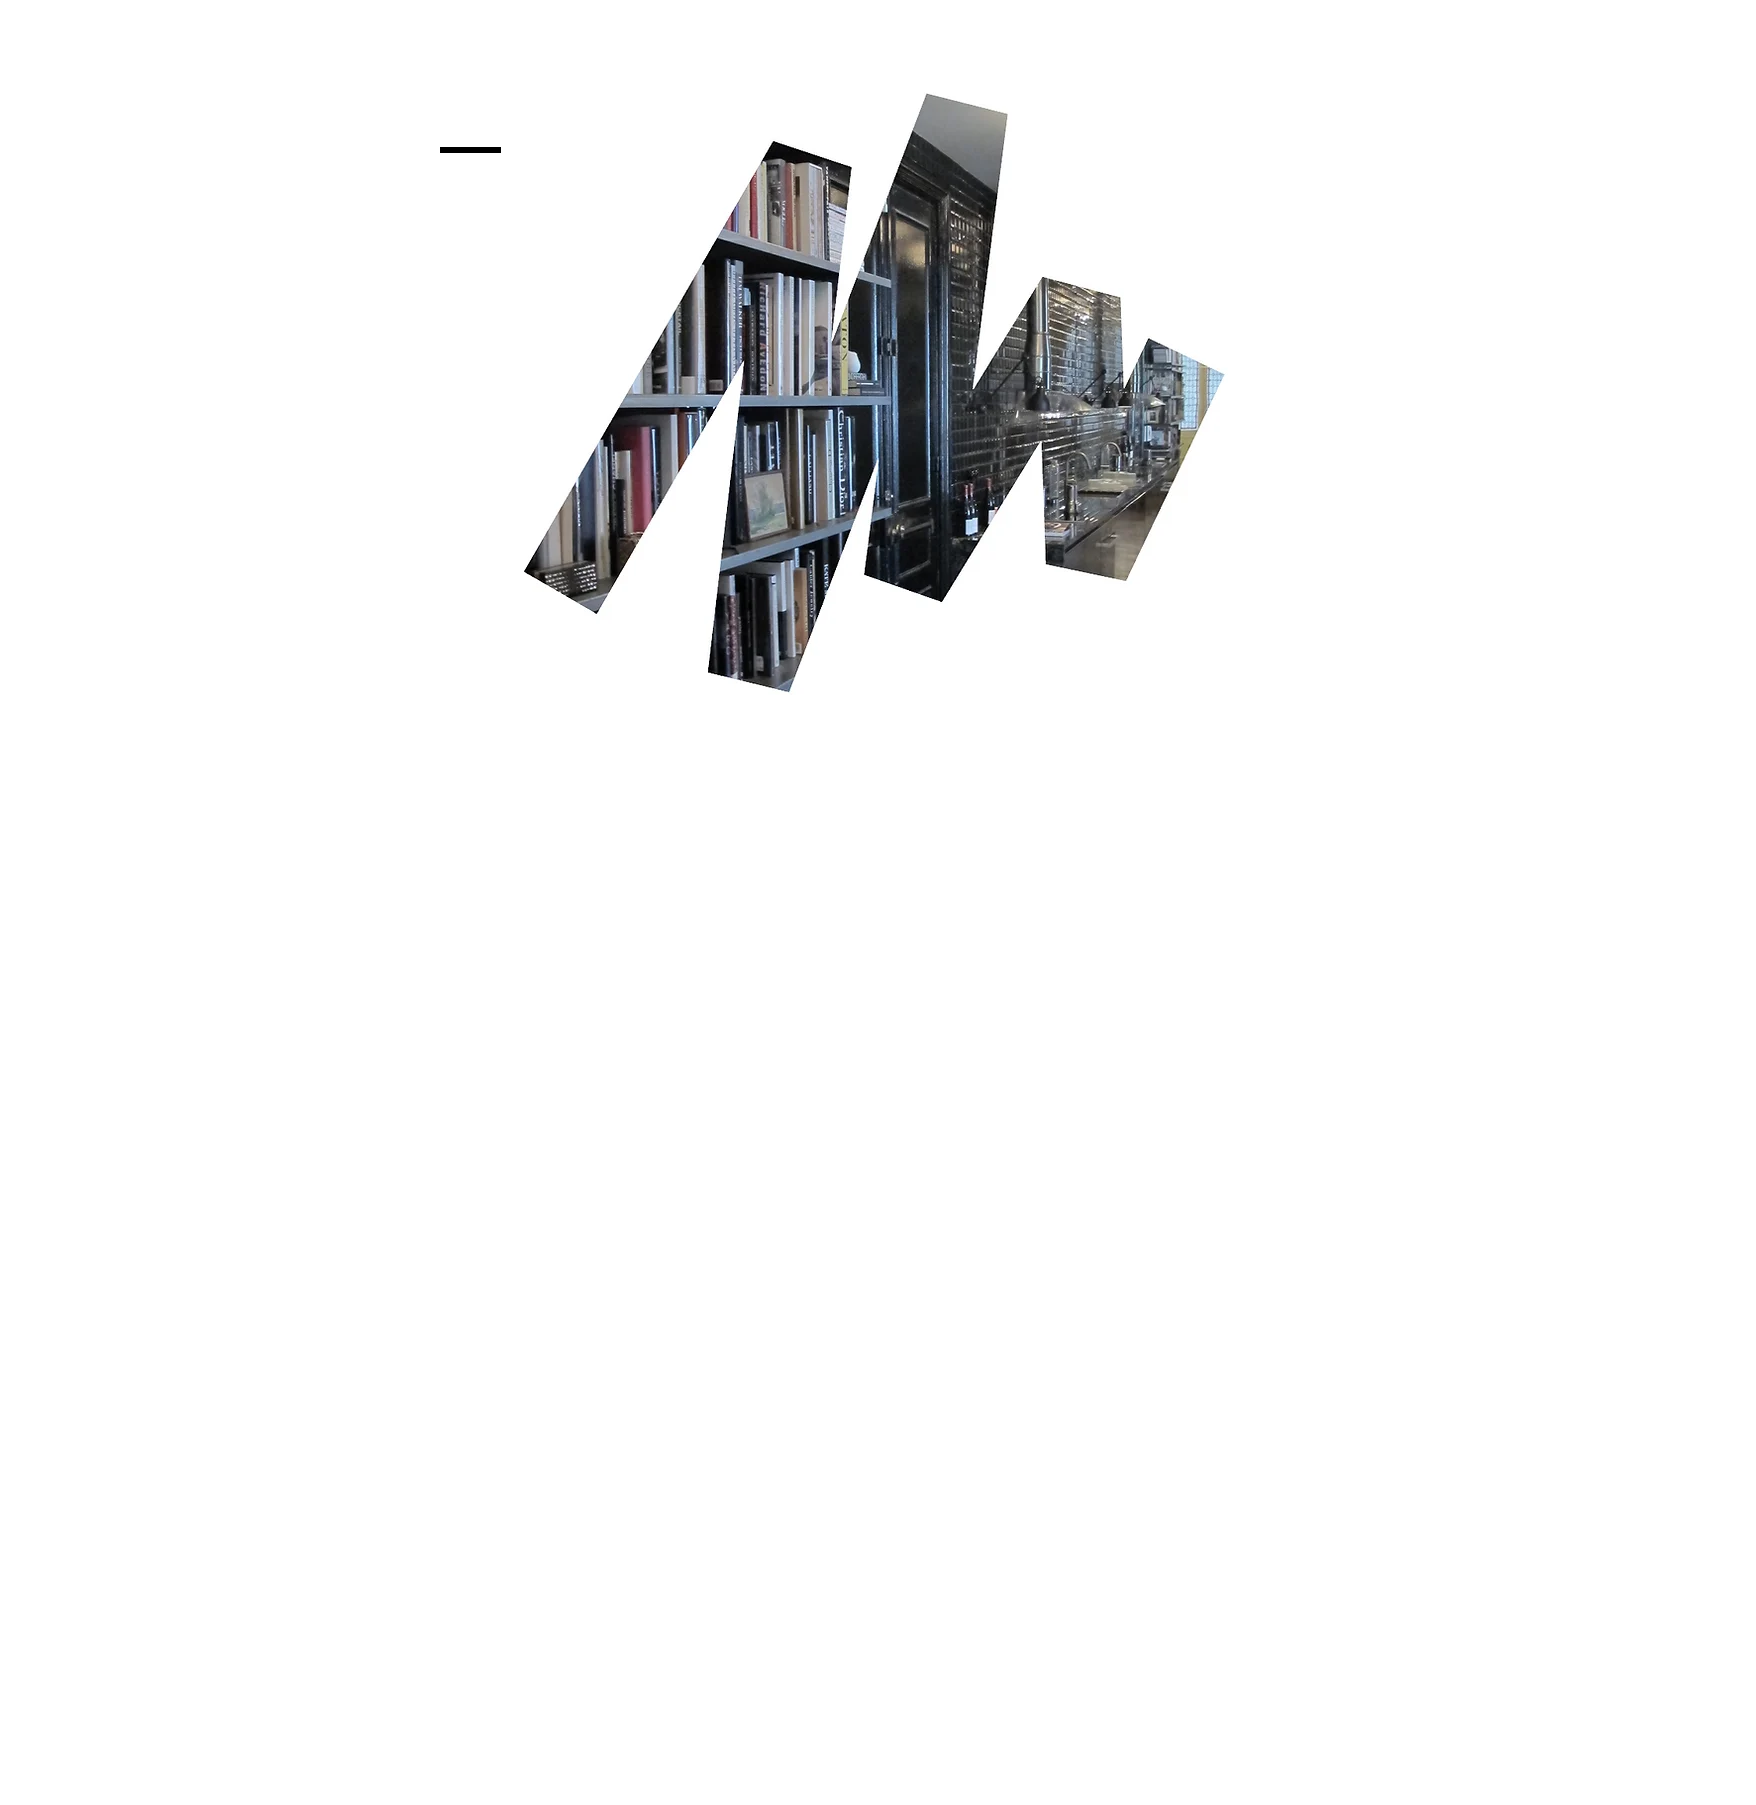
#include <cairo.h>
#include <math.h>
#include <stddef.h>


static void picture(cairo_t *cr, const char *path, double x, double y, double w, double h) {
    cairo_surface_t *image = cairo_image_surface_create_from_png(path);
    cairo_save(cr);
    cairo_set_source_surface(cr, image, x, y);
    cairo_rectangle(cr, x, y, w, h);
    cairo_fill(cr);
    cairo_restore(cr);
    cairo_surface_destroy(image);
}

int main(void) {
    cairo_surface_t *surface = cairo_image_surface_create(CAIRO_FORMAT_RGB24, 1756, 1805);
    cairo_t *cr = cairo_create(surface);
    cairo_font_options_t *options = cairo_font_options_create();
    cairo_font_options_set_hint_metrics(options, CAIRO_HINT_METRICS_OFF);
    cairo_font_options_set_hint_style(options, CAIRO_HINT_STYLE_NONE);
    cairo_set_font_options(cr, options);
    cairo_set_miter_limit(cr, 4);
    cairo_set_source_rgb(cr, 1, 1, 1);
    cairo_paint(cr);
    cairo_set_source_rgb(cr, 0, 0, 0);
    cairo_rectangle(cr, 440, 147, 61, 6);
    cairo_fill(cr);
    picture(cr, "img1.png", 524, 92, 704, 603);
    cairo_surface_write_to_png(surface, "page.png");
    cairo_font_options_destroy(options);
    cairo_destroy(cr);
    cairo_surface_destroy(surface);
    return 0;
}
